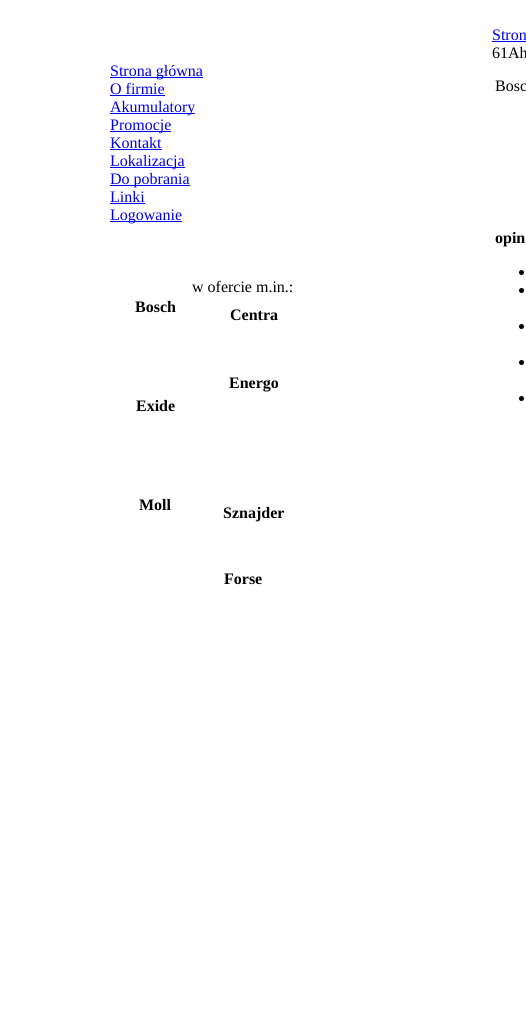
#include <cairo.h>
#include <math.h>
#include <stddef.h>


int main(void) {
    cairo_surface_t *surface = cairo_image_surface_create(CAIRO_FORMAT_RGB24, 526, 1029);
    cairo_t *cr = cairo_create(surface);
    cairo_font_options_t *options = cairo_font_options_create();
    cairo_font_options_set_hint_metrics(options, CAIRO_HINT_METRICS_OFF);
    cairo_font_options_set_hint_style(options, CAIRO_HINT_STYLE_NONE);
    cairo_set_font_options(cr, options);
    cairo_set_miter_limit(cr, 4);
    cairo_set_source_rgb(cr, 1, 1, 1);
    cairo_paint(cr);
    cairo_set_source_rgb(cr, 0, 0, 0.933);
    cairo_rectangle(cr, 110, 77, 93, 1);
    cairo_fill(cr);
    cairo_select_font_face(cr, "Liberation Serif", CAIRO_FONT_SLANT_NORMAL, CAIRO_FONT_WEIGHT_NORMAL);
    cairo_set_font_size(cr, 16);
    cairo_move_to(cr, 110, 76);
    cairo_show_text(cr, "Strona główna");
    cairo_move_to(cr, 110, 94);
    cairo_show_text(cr, "O firmie");
    cairo_rectangle(cr, 110, 95, 55, 1);
    cairo_fill(cr);
    cairo_rectangle(cr, 110, 113, 85, 1);
    cairo_fill(cr);
    cairo_move_to(cr, 110, 112);
    cairo_show_text(cr, "Akumulatory");
    cairo_rectangle(cr, 110, 131, 61, 1);
    cairo_fill(cr);
    cairo_move_to(cr, 110, 130);
    cairo_show_text(cr, "Promocje");
    cairo_move_to(cr, 110, 148);
    cairo_show_text(cr, "Kontakt");
    cairo_rectangle(cr, 110, 149, 52, 1);
    cairo_fill(cr);
    cairo_rectangle(cr, 110, 167, 75, 1);
    cairo_fill(cr);
    cairo_move_to(cr, 110, 166);
    cairo_show_text(cr, "Lokalizacja");
    cairo_rectangle(cr, 110, 185, 80, 1);
    cairo_fill(cr);
    cairo_move_to(cr, 110, 184);
    cairo_show_text(cr, "Do pobrania");
    cairo_move_to(cr, 110, 202);
    cairo_show_text(cr, "Linki");
    cairo_rectangle(cr, 110, 203, 35, 1);
    cairo_fill(cr);
    cairo_rectangle(cr, 110, 221, 72, 1);
    cairo_fill(cr);
    cairo_move_to(cr, 110, 220);
    cairo_show_text(cr, "Logowanie");
    cairo_set_source_rgb(cr, 0, 0, 0);
    cairo_move_to(cr, 192, 292);
    cairo_show_text(cr, "w ofercie m.in.:");
    cairo_select_font_face(cr, "Liberation Serif", CAIRO_FONT_SLANT_NORMAL, CAIRO_FONT_WEIGHT_BOLD);
    cairo_move_to(cr, 135, 312);
    cairo_show_text(cr, "Bosch");
    cairo_move_to(cr, 230, 320);
    cairo_show_text(cr, "Centra");
    cairo_move_to(cr, 229, 388);
    cairo_show_text(cr, "Energo");
    cairo_move_to(cr, 136, 411);
    cairo_show_text(cr, "Exide");
    cairo_move_to(cr, 139, 510);
    cairo_show_text(cr, "Moll");
    cairo_move_to(cr, 223, 518);
    cairo_show_text(cr, "Sznajder");
    cairo_move_to(cr, 224, 584);
    cairo_show_text(cr, "Forse");
    cairo_select_font_face(cr, "Liberation Serif", CAIRO_FONT_SLANT_NORMAL, CAIRO_FONT_WEIGHT_NORMAL);
    cairo_set_source_rgb(cr, 0, 0, 0.933);
    cairo_move_to(cr, 492, 40);
    cairo_show_text(cr, "Stron");
    cairo_rectangle(cr, 492, 41, 34, 1);
    cairo_fill(cr);
    cairo_set_source_rgb(cr, 0, 0, 0);
    cairo_move_to(cr, 492, 58);
    cairo_show_text(cr, "61Ah");
    cairo_move_to(cr, 495, 91);
    cairo_show_text(cr, "Bosc");
    cairo_select_font_face(cr, "Liberation Serif", CAIRO_FONT_SLANT_NORMAL, CAIRO_FONT_WEIGHT_BOLD);
    cairo_move_to(cr, 495, 243);
    cairo_show_text(cr, "opin");
    cairo_new_path(cr);
    cairo_arc(cr, 521.5, 272.5, 2.5, 0, 2 * M_PI);
    cairo_fill(cr);
    cairo_arc(cr, 521.5, 290.5, 2.5, 0, 2 * M_PI);
    cairo_fill(cr);
    cairo_arc(cr, 521.5, 326.5, 2.5, 0, 2 * M_PI);
    cairo_fill(cr);
    cairo_arc(cr, 521.5, 362.5, 2.5, 0, 2 * M_PI);
    cairo_fill(cr);
    cairo_arc(cr, 521.5, 398.5, 2.5, 0, 2 * M_PI);
    cairo_fill(cr);
    cairo_surface_write_to_png(surface, "page.png");
    cairo_font_options_destroy(options);
    cairo_destroy(cr);
    cairo_surface_destroy(surface);
    return 0;
}
